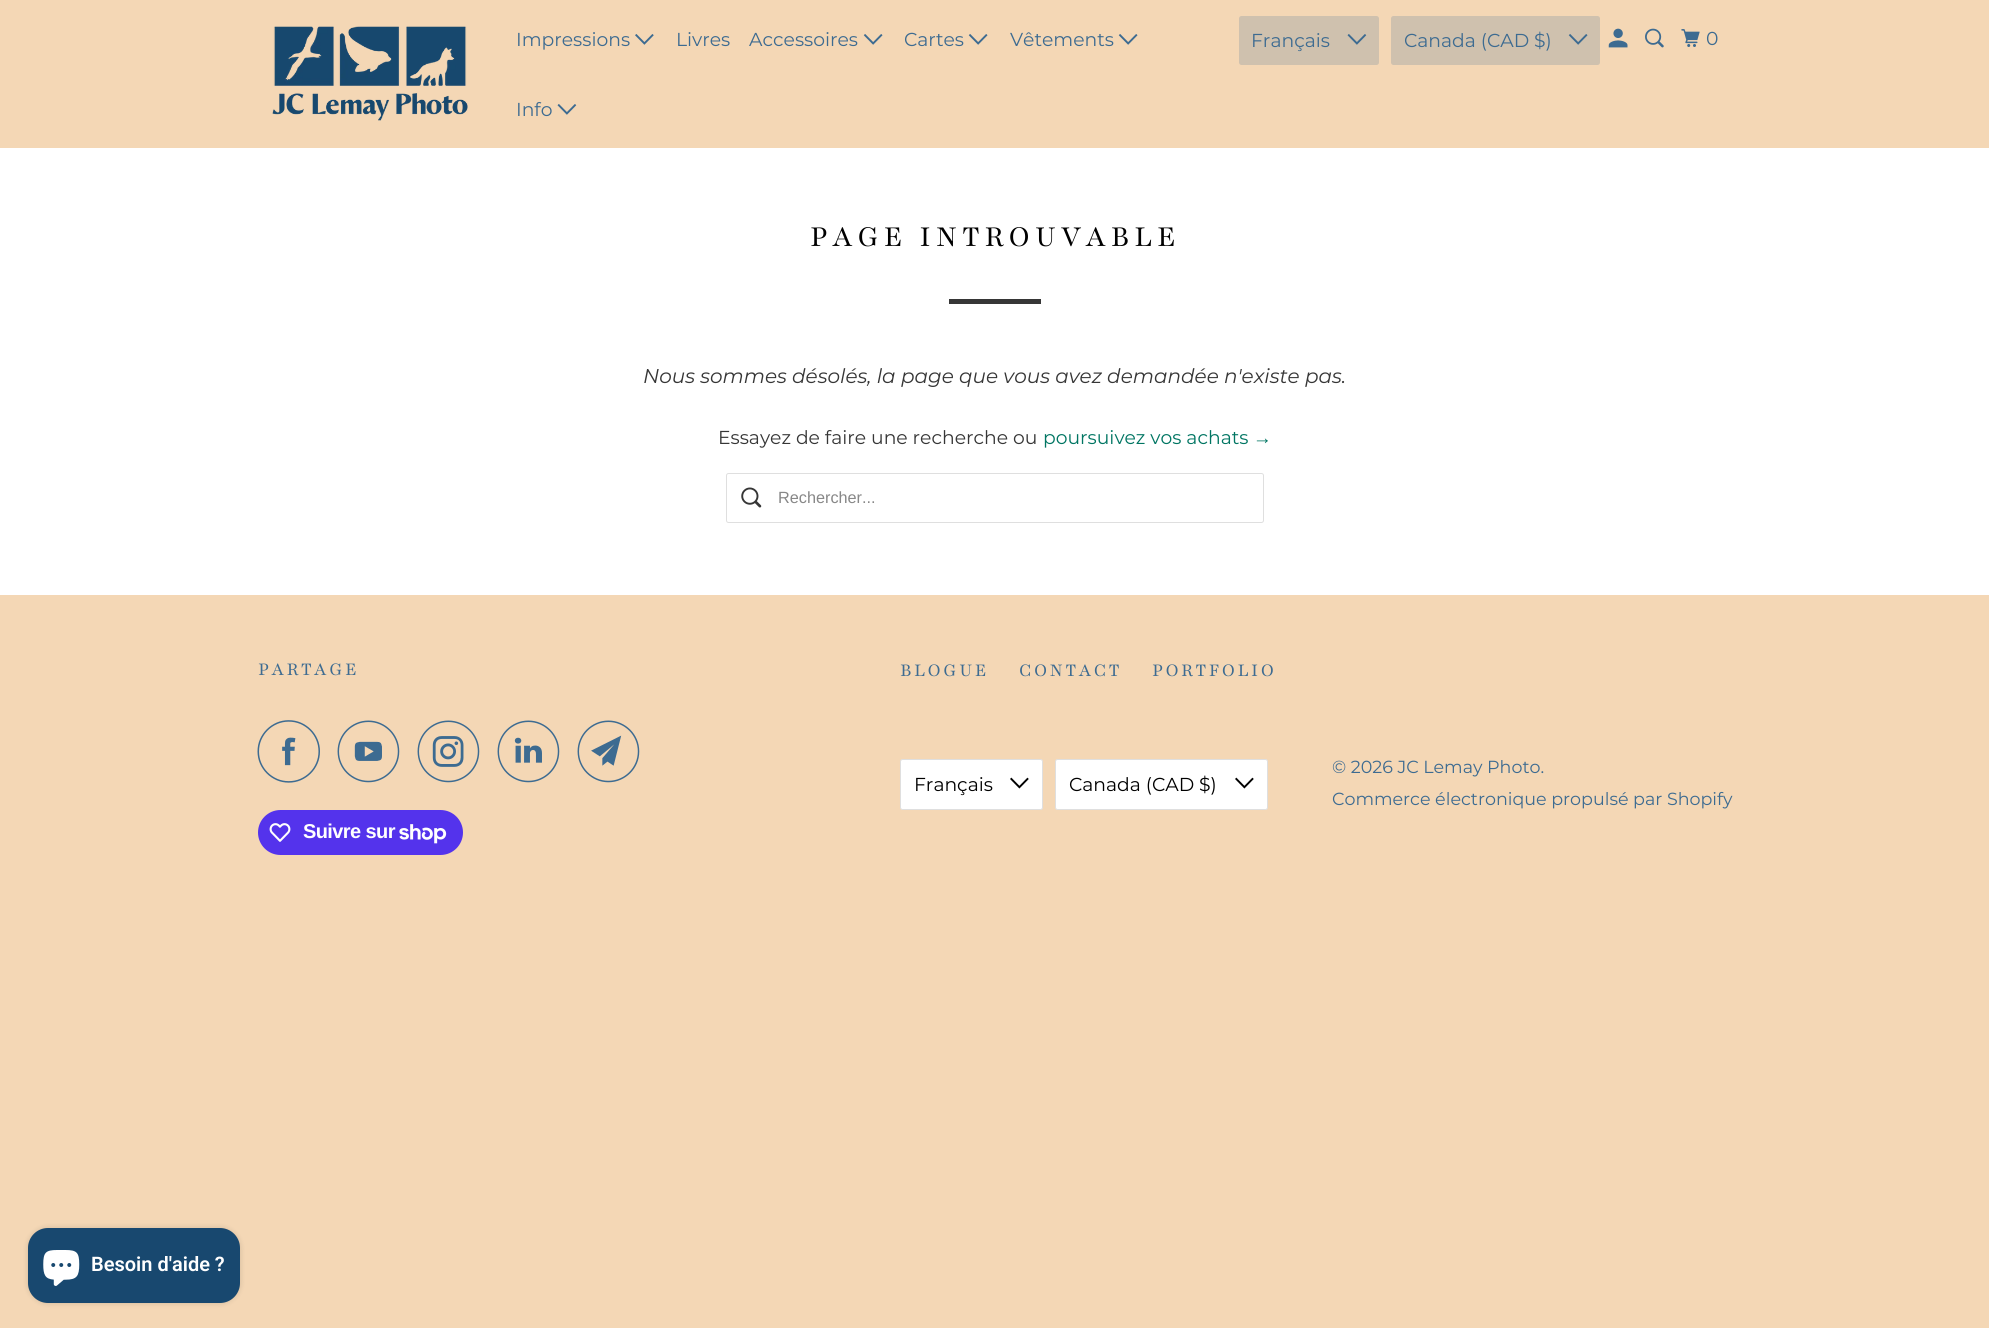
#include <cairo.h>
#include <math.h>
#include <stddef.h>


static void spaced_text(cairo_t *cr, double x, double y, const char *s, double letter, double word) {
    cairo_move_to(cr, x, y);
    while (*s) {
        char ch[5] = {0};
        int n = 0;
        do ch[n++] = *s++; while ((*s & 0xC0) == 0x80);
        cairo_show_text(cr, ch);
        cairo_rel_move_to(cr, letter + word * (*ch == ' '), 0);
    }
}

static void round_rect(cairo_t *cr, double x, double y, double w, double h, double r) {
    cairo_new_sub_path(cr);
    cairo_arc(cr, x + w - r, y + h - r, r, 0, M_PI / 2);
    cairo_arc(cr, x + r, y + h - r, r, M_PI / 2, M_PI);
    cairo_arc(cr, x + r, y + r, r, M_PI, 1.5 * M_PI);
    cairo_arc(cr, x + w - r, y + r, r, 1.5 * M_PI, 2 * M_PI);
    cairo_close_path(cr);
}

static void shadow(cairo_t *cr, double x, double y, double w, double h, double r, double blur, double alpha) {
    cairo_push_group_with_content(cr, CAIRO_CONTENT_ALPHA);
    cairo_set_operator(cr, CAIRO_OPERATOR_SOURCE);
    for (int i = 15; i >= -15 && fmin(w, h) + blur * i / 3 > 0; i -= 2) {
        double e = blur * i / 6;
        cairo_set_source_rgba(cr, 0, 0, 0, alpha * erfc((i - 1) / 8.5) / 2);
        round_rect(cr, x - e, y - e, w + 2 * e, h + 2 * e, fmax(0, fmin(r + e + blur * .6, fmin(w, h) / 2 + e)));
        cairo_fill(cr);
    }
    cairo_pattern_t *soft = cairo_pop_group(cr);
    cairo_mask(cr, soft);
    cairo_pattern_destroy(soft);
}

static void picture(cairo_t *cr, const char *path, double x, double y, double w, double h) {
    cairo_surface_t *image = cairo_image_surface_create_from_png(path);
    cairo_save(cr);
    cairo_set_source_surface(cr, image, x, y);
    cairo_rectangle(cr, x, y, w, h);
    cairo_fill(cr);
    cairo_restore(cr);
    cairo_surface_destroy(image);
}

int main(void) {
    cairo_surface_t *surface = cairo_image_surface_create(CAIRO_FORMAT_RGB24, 1989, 1328);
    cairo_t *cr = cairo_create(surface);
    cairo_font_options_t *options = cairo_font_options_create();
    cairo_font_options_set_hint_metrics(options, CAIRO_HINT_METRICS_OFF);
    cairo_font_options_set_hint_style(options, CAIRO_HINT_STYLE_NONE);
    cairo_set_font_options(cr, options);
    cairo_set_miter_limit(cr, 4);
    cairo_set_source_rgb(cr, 0.957, 0.843, 0.71);
    cairo_paint(cr);
    picture(cr, "img1.png", 272, 26, 196, 95);
    cairo_select_font_face(cr, "Montserrat", CAIRO_FONT_SLANT_NORMAL, CAIRO_FONT_WEIGHT_NORMAL);
    cairo_set_font_size(cr, 18.75);
    cairo_set_source_rgb(cr, 0.239, 0.42, 0.569);
    cairo_move_to(cr, 516, 46);
    cairo_show_text(cr, "Impressions");
    picture(cr, "img2.png", 635, 34, 19, 11);
    cairo_move_to(cr, 676, 46);
    cairo_show_text(cr, "Livres");
    cairo_move_to(cr, 749, 46);
    cairo_show_text(cr, "Accessoires");
    picture(cr, "img3.png", 863, 34, 20, 11);
    cairo_move_to(cr, 904, 46);
    cairo_show_text(cr, "Cartes");
    picture(cr, "img3.png", 968, 34, 20, 11);
    cairo_move_to(cr, 1010, 46);
    cairo_show_text(cr, "Vêtements");
    picture(cr, "img3.png", 1118, 34, 20, 11);
    cairo_move_to(cr, 516, 116);
    cairo_show_text(cr, "Info");
    picture(cr, "img4.png", 557, 104, 20, 11);
    cairo_set_source_rgb(cr, 0.812, 0.757, 0.682);
    round_rect(cr, 1239, 16, 140, 49, 2.5);
    cairo_fill(cr);
    cairo_set_source_rgb(cr, 0.239, 0.42, 0.569);
    cairo_move_to(cr, 1251, 47);
    cairo_show_text(cr, "Français");
    picture(cr, "img5.png", 1347, 34, 20, 11);
    cairo_set_source_rgb(cr, 0.812, 0.757, 0.682);
    round_rect(cr, 1391, 16, 209, 49, 2.5);
    cairo_fill(cr);
    cairo_set_source_rgb(cr, 0.239, 0.42, 0.569);
    cairo_move_to(cr, 1404, 47);
    cairo_show_text(cr, "Canada (CAD $)");
    picture(cr, "img6.png", 1568, 34, 20, 11);
    picture(cr, "img7.png", 1608, 28, 20, 20);
    picture(cr, "img8.png", 1645, 28, 19, 20);
    picture(cr, "img9.png", 1681, 29, 19, 18);
    cairo_move_to(cr, 1706, 45);
    cairo_show_text(cr, "0");
    cairo_set_source_rgb(cr, 1, 1, 1);
    cairo_rectangle(cr, 0, 148, 1989, 447);
    cairo_fill(cr);
    cairo_select_font_face(cr, "Playfair", CAIRO_FONT_SLANT_NORMAL, CAIRO_FONT_WEIGHT_NORMAL);
    cairo_set_font_size(cr, 32.5);
    cairo_set_source_rgb(cr, 0, 0, 0);
    spaced_text(cr, 810, 246, "PAGE INTROUVABLE", 5, 0);
    cairo_set_source_rgb(cr, 0.212, 0.212, 0.212);
    cairo_rectangle(cr, 949, 299, 92, 5);
    cairo_fill(cr);
    cairo_select_font_face(cr, "Montserrat", CAIRO_FONT_SLANT_ITALIC, CAIRO_FONT_WEIGHT_NORMAL);
    cairo_set_font_size(cr, 20);
    cairo_move_to(cr, 643, 383);
    cairo_show_text(cr, "Nous sommes désolés, la page que vous avez demandée n'existe pas.");
    cairo_select_font_face(cr, "Montserrat", CAIRO_FONT_SLANT_NORMAL, CAIRO_FONT_WEIGHT_NORMAL);
    cairo_set_font_size(cr, 18.75);
    cairo_move_to(cr, 718, 444);
    cairo_show_text(cr, "Essayez de faire une recherche ou");
    cairo_set_source_rgb(cr, 0, 0.459, 0.384);
    cairo_move_to(cr, 1043, 444);
    cairo_show_text(cr, "poursuivez vos achats");
    cairo_select_font_face(cr, "Liberation Sans", CAIRO_FONT_SLANT_NORMAL, CAIRO_FONT_WEIGHT_NORMAL);
    cairo_move_to(cr, 1253, 444);
    cairo_show_text(cr, "→");
    round_rect(cr, 726.5, 473.5, 537, 49, 2);
    cairo_set_source_rgb(cr, 0.875, 0.875, 0.875);
    cairo_set_line_width(cr, 1);
    cairo_stroke(cr);
    picture(cr, "img10.png", 741, 487, 21, 21);
    cairo_set_font_size(cr, 16.25);
    cairo_set_source_rgb(cr, 0.533, 0.533, 0.533);
    cairo_move_to(cr, 778, 503);
    cairo_show_text(cr, "Rechercher...");
    cairo_select_font_face(cr, "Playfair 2", CAIRO_FONT_SLANT_NORMAL, CAIRO_FONT_WEIGHT_NORMAL);
    cairo_set_font_size(cr, 20);
    cairo_set_source_rgb(cr, 0.239, 0.42, 0.569);
    spaced_text(cr, 258, 675, "PARTAGE", 2.5, 0);
    picture(cr, "img11.png", 257, 720, 63, 63);
    picture(cr, "img12.png", 337, 720, 63, 63);
    picture(cr, "img13.png", 417, 720, 63, 63);
    picture(cr, "img14.png", 497, 720, 63, 63);
    picture(cr, "img15.png", 577, 720, 63, 63);
    cairo_set_source_rgb(cr, 0.329, 0.2, 0.922);
    round_rect(cr, 258, 810, 205, 45, 22.5);
    cairo_fill(cr);
    picture(cr, "img16.png", 269, 823, 22, 19);
    cairo_select_font_face(cr, "Liberation Sans", CAIRO_FONT_SLANT_NORMAL, CAIRO_FONT_WEIGHT_BOLD);
    cairo_set_source_rgb(cr, 1, 1, 1);
    spaced_text(cr, 303, 838, "Suivre sur", -0.6, 0);
    picture(cr, "img17.png", 399, 824, 48, 20);
    cairo_select_font_face(cr, "Playfair 2", CAIRO_FONT_SLANT_NORMAL, CAIRO_FONT_WEIGHT_NORMAL);
    cairo_set_source_rgb(cr, 0.239, 0.42, 0.569);
    spaced_text(cr, 900, 676, "BLOGUE", 2.5, 0);
    spaced_text(cr, 1019, 676, "CONTACT", 2.5, 0);
    spaced_text(cr, 1152, 676, "PORTFOLIO", 2.5, 0);
    cairo_set_source_rgb(cr, 1, 1, 1);
    round_rect(cr, 900.5, 759.5, 142, 50, 2);
    cairo_fill_preserve(cr);
    cairo_set_source_rgb(cr, 0.875, 0.875, 0.875);
    cairo_stroke(cr);
    cairo_select_font_face(cr, "Montserrat", CAIRO_FONT_SLANT_NORMAL, CAIRO_FONT_WEIGHT_NORMAL);
    cairo_set_font_size(cr, 18.75);
    cairo_set_source_rgb(cr, 0, 0, 0);
    cairo_move_to(cr, 914, 791);
    cairo_show_text(cr, "Français");
    picture(cr, "img18.png", 1010, 777, 19, 12);
    cairo_set_source_rgb(cr, 1, 1, 1);
    round_rect(cr, 1055.5, 759.5, 212, 50, 2);
    cairo_fill_preserve(cr);
    cairo_set_source_rgb(cr, 0.875, 0.875, 0.875);
    cairo_stroke(cr);
    cairo_set_source_rgb(cr, 0, 0, 0);
    cairo_move_to(cr, 1069, 791);
    cairo_show_text(cr, "Canada (CAD $)");
    picture(cr, "img18.png", 1235, 777, 19, 12);
    cairo_set_font_size(cr, 17.5);
    cairo_set_source_rgb(cr, 0.239, 0.42, 0.569);
    cairo_move_to(cr, 1332, 773);
    cairo_show_text(cr, "© 2026 JC Lemay Photo.");
    cairo_move_to(cr, 1332, 805);
    cairo_show_text(cr, "Commerce électronique propulsé par Shopify");
    cairo_set_source_rgb(cr, 0, 0, 0);
    shadow(cr, 28, 1228, 212, 75, 20, 3, 0.15);
    cairo_set_source_rgb(cr, 0.094, 0.282, 0.435);
    round_rect(cr, 28, 1228, 212, 75, 20);
    cairo_fill(cr);
    picture(cr, "img19.png", 43, 1250, 37, 36);
    cairo_select_font_face(cr, "Roboto SemiBold", CAIRO_FONT_SLANT_NORMAL, CAIRO_FONT_WEIGHT_NORMAL);
    cairo_set_font_size(cr, 20);
    cairo_set_source_rgb(cr, 1, 1, 1);
    cairo_move_to(cr, 91, 1271);
    cairo_show_text(cr, "Besoin d'aide ?");
    cairo_surface_write_to_png(surface, "page.png");
    cairo_font_options_destroy(options);
    cairo_destroy(cr);
    cairo_surface_destroy(surface);
    return 0;
}
